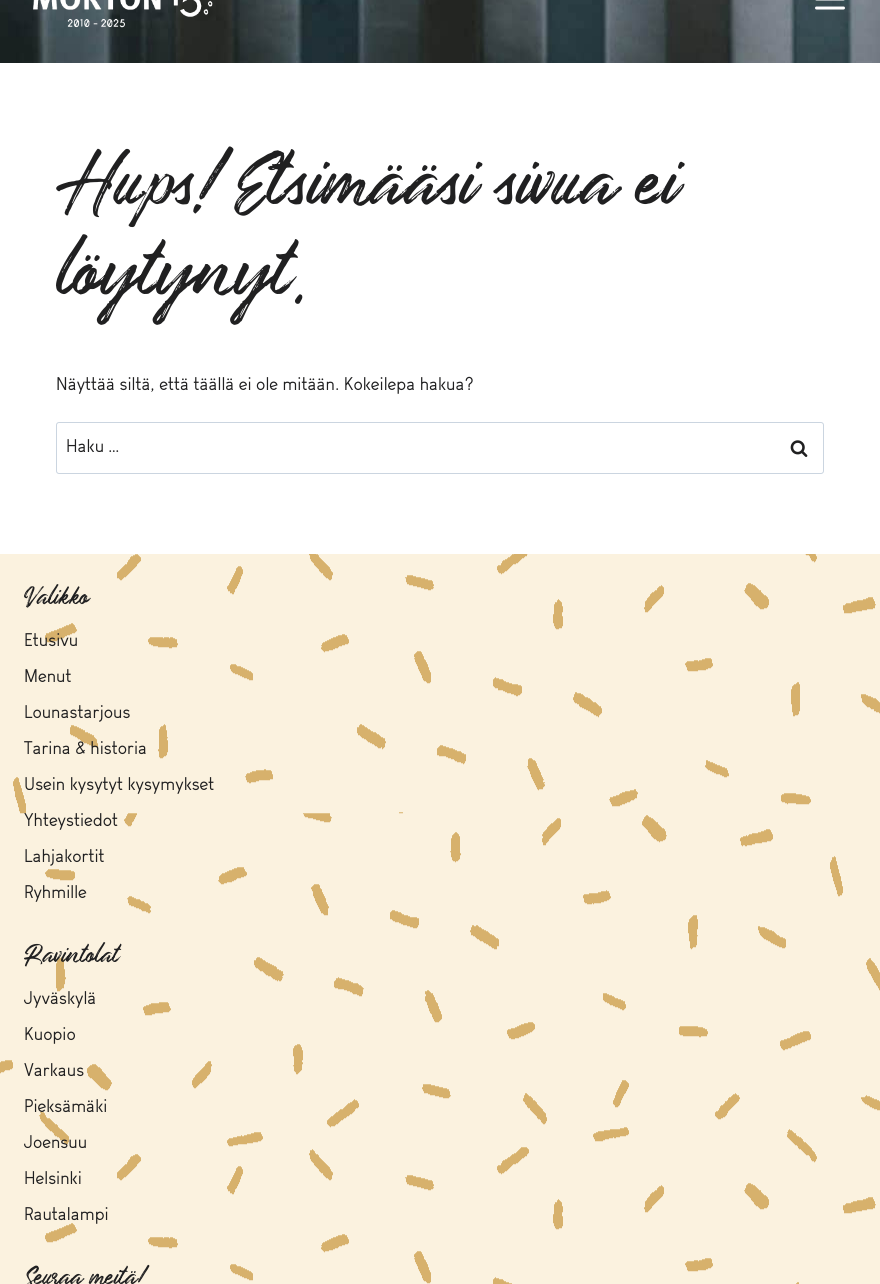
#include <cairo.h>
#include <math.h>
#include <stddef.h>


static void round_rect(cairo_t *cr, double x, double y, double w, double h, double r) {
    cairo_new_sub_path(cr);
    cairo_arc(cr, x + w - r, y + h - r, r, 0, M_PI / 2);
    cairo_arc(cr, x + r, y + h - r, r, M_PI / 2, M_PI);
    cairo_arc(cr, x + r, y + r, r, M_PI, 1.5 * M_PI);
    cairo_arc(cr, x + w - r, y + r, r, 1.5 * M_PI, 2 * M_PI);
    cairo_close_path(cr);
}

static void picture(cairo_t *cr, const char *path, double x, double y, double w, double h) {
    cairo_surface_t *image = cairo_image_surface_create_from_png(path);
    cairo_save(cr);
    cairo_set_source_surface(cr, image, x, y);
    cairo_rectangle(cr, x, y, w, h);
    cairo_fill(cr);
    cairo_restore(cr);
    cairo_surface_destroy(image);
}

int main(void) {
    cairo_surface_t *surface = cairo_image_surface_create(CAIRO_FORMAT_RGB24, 880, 1284);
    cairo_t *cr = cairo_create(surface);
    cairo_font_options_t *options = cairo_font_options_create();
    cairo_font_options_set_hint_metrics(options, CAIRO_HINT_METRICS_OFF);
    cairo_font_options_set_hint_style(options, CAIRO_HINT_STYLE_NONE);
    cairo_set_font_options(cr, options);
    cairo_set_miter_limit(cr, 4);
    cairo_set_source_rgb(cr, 1, 1, 1);
    cairo_paint(cr);
    picture(cr, "img1.png", 0, 0, 880, 63);
    picture(cr, "img2.png", 33, 0, 180, 28);
    picture(cr, "img3.png", 815, 0, 30, 10);
    cairo_select_font_face(cr, "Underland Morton", CAIRO_FONT_SLANT_NORMAL, CAIRO_FONT_WEIGHT_NORMAL);
    cairo_set_font_size(cr, 60);
    cairo_set_source_rgb(cr, 0.125, 0.125, 0.129);
    cairo_move_to(cr, 56, 204);
    cairo_show_text(cr, "Hups! Etsimääsi sivua ei");
    cairo_move_to(cr, 56, 294);
    cairo_show_text(cr, "löytynyt.");
    cairo_select_font_face(cr, "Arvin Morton", CAIRO_FONT_SLANT_NORMAL, CAIRO_FONT_WEIGHT_NORMAL);
    cairo_set_font_size(cr, 18);
    cairo_move_to(cr, 56, 390);
    cairo_show_text(cr, "Näyttää siltä, että täällä ei ole mitään. Kokeilepa hakua?");
    round_rect(cr, 56.5, 422.5, 767, 51, 2.5);
    cairo_set_source_rgb(cr, 0.796, 0.835, 0.878);
    cairo_set_line_width(cr, 1);
    cairo_stroke(cr);
    cairo_set_source_rgb(cr, 0.125, 0.125, 0.129);
    cairo_move_to(cr, 66, 452);
    cairo_show_text(cr, "Haku …");
    picture(cr, "img4.png", 790, 440, 18, 17);
    cairo_set_source_rgb(cr, 0.984, 0.949, 0.875);
    cairo_rectangle(cr, 0, 554, 880, 730);
    cairo_fill(cr);
    picture(cr, "img5.png", 0, 554, 880, 730);
    cairo_select_font_face(cr, "Underland Morton", CAIRO_FONT_SLANT_NORMAL, CAIRO_FONT_WEIGHT_NORMAL);
    cairo_set_font_size(cr, 20);
    cairo_set_source_rgb(cr, 0.125, 0.125, 0.129);
    cairo_move_to(cr, 24, 604);
    cairo_show_text(cr, "Valikko");
    cairo_select_font_face(cr, "Arvin Morton", CAIRO_FONT_SLANT_NORMAL, CAIRO_FONT_WEIGHT_NORMAL);
    cairo_set_font_size(cr, 18);
    cairo_move_to(cr, 24, 646);
    cairo_show_text(cr, "Etusivu");
    cairo_move_to(cr, 24, 682);
    cairo_show_text(cr, "Menut");
    cairo_move_to(cr, 24, 718);
    cairo_show_text(cr, "Lounastarjous");
    cairo_move_to(cr, 24, 754);
    cairo_show_text(cr, "Tarina & historia");
    cairo_move_to(cr, 24, 790);
    cairo_show_text(cr, "Usein kysytyt kysymykset");
    cairo_move_to(cr, 24, 826);
    cairo_show_text(cr, "Yhteystiedot");
    cairo_move_to(cr, 24, 862);
    cairo_show_text(cr, "Lahjakortit");
    cairo_move_to(cr, 24, 898);
    cairo_show_text(cr, "Ryhmille");
    cairo_select_font_face(cr, "Underland Morton", CAIRO_FONT_SLANT_NORMAL, CAIRO_FONT_WEIGHT_NORMAL);
    cairo_set_font_size(cr, 20);
    cairo_move_to(cr, 24, 962);
    cairo_show_text(cr, "Ravintolat");
    cairo_select_font_face(cr, "Arvin Morton", CAIRO_FONT_SLANT_NORMAL, CAIRO_FONT_WEIGHT_NORMAL);
    cairo_set_font_size(cr, 18);
    cairo_move_to(cr, 24, 1004);
    cairo_show_text(cr, "Jyväskylä");
    cairo_move_to(cr, 24, 1040);
    cairo_show_text(cr, "Kuopio");
    cairo_move_to(cr, 24, 1076);
    cairo_show_text(cr, "Varkaus");
    cairo_move_to(cr, 24, 1112);
    cairo_show_text(cr, "Pieksämäki");
    cairo_move_to(cr, 24, 1148);
    cairo_show_text(cr, "Joensuu");
    cairo_move_to(cr, 24, 1184);
    cairo_show_text(cr, "Helsinki");
    cairo_move_to(cr, 24, 1220);
    cairo_show_text(cr, "Rautalampi");
    cairo_select_font_face(cr, "Underland Morton", CAIRO_FONT_SLANT_NORMAL, CAIRO_FONT_WEIGHT_NORMAL);
    cairo_set_font_size(cr, 20);
    cairo_move_to(cr, 24, 1284);
    cairo_show_text(cr, "Seuraa meitä!");
    cairo_surface_write_to_png(surface, "page.png");
    cairo_font_options_destroy(options);
    cairo_destroy(cr);
    cairo_surface_destroy(surface);
    return 0;
}
